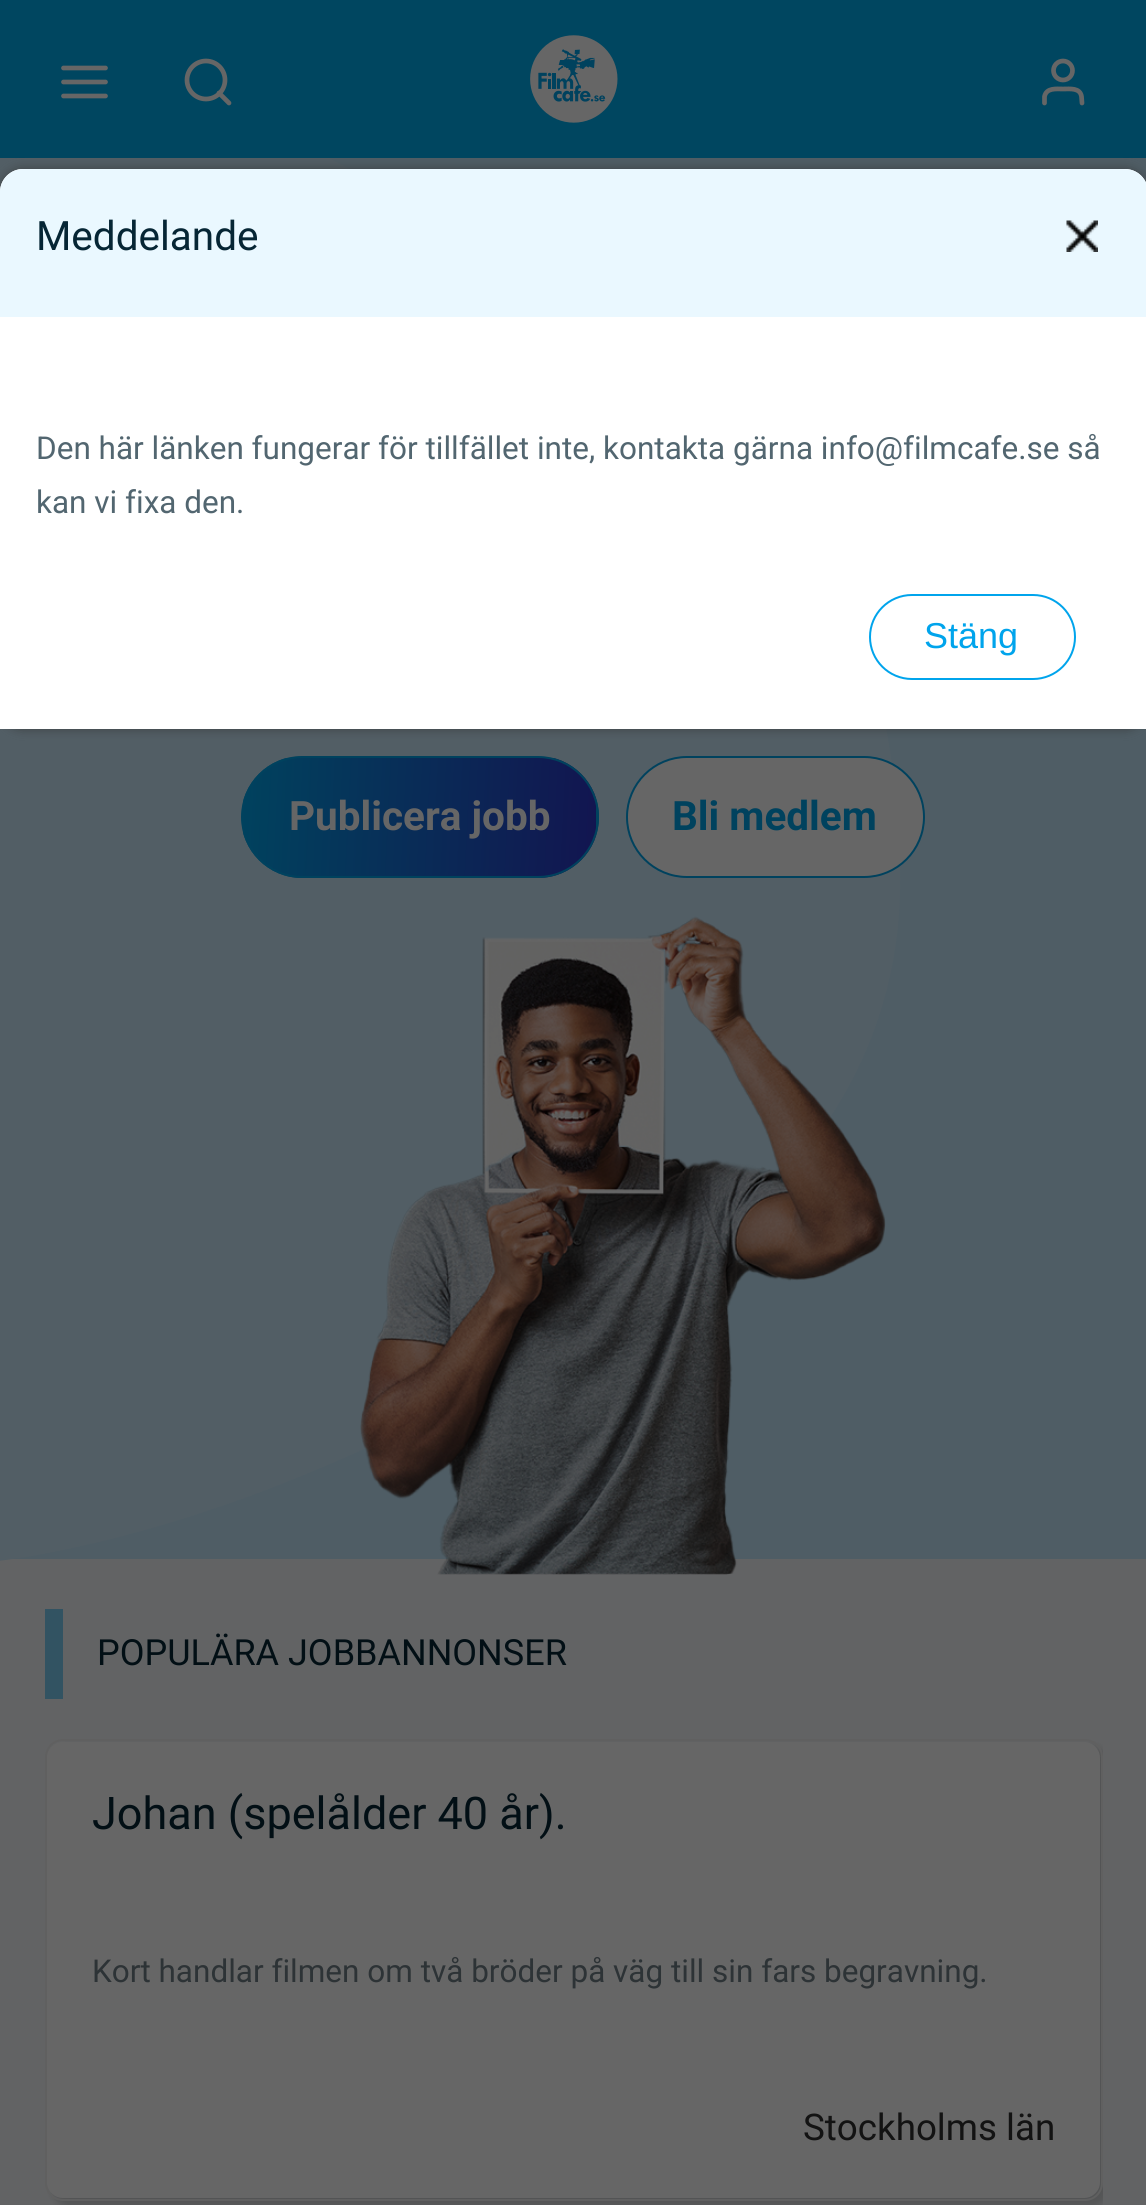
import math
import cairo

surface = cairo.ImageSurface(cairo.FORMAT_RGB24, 1146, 2205)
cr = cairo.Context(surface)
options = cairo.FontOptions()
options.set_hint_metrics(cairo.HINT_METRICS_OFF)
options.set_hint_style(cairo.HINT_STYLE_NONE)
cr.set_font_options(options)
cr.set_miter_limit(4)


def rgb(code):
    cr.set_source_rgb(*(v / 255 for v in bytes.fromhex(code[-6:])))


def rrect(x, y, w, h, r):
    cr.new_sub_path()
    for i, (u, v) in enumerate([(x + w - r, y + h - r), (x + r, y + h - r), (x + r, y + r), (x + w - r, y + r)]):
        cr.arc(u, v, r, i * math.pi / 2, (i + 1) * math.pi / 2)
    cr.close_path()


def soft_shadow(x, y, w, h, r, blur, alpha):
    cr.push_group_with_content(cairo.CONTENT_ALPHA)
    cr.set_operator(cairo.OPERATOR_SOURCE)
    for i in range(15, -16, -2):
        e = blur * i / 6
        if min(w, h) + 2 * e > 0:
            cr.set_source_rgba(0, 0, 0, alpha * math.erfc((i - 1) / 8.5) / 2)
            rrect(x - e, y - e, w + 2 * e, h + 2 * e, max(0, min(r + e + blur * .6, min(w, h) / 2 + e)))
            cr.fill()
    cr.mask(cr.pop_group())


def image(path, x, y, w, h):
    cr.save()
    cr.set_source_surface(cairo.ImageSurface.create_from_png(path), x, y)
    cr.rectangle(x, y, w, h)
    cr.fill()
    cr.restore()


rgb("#626364")
cr.paint()
rgb("#4f5d65")
cr.rectangle(13, 158, 1133, 1401)
cr.fill()
rgb("#525e65")
cr.new_path()
cr.move_to(-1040, 199)
cr.curve_to(-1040, 199, -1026, 107, -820, 1)
cr.curve_to(-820, 1, -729, 6, -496, 6)
cr.line_to(-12, 6)
cr.curve_to(-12, 6, 286, 108, 531, 282)
cr.curve_to(770, 451, 892, 566, 900, 866)
cr.curve_to(907, 1095, 749, 1229, 635, 1300)
cr.curve_to(510, 1378, 296, 1506, 43, 1554)
cr.curve_to(-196, 1600, -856, 1554, -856, 1554)
cr.curve_to(-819, 1564, -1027, 1467, -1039, 1351)
cr.curve_to(-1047, 1278, -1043, 230, -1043, 230)
cr.fill()
rgb("#004660")
cr.rectangle(0, 0, 1146, 158)
cr.fill()
rgb("#323232")
soft_shadow(0, 169, 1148, 560, 23, 5.5, 0.66)
rgb("#ffffff")
rrect(0, 169, 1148, 560, 23)
cr.fill()
rgb("#eaf8ff")
cr.new_path()
cr.move_to(23, 169)
cr.line_to(1125, 169)
cr.curve_to(1137.5, 169, 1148, 179.5, 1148, 192)
cr.line_to(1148, 317)
cr.line_to(0, 317)
cr.line_to(0, 192)
cr.curve_to(0, 179.5, 10.5, 169, 23, 169)
cr.close_path()
cr.fill()
image("img/1.png", 1066, 220, 32, 32)
rgb("#ffffff")
cr.rectangle(0, 706, 1146, 23)
cr.fill()
rrect(870, 595, 205, 84, 42)
rgb("#00a4ec")
cr.stroke()
cr.new_path()
cr.move_to(63.5, 82)
cr.line_to(105.5, 82)
cr.move_to(63.5, 68)
cr.line_to(105.5, 68)
cr.move_to(63.5, 96)
cr.line_to(105.5, 96)
rgb("#666666")
cr.set_line_width(4.7)
cr.set_line_cap(cairo.LINE_CAP_ROUND)
cr.set_line_join(cairo.LINE_JOIN_ROUND)
cr.stroke()
cr.arc(206, 80, 19, 0, 2 * math.pi)
cr.set_line_cap(cairo.LINE_CAP_BUTT)
cr.set_line_join(cairo.LINE_JOIN_MITER)
cr.stroke()
cr.new_path()
cr.move_to(229, 103)
cr.line_to(219, 93)
cr.set_line_cap(cairo.LINE_CAP_ROUND)
cr.set_line_join(cairo.LINE_JOIN_ROUND)
cr.stroke()
image("img/2.png", 530, 35, 88, 88)
cr.new_path()
cr.move_to(1082, 103)
cr.line_to(1081.5, 96.5)
cr.curve_to(1080, 87.5, 1070, 89, 1063, 89)
cr.curve_to(1056.5, 89, 1046.5, 87.5, 1044.5, 96.5)
cr.line_to(1044.5, 103)
cr.stroke()
cr.arc(1063, 70.5, 9.5, 0, 2 * math.pi)
cr.set_line_cap(cairo.LINE_CAP_BUTT)
cr.set_line_join(cairo.LINE_JOIN_MITER)
cr.stroke()
image("img/3.png", 360, 916, 526, 659)
cr.save()
rrect(241, 756, 358, 122, 61)
cr.clip()
gradient = cairo.LinearGradient(240, 808, 599, 826)
gradient.add_color_stop_rgba(0, 0, 0.259, 0.369, 1)
gradient.add_color_stop_rgba(1, 0.071, 0.082, 0.314, 1)
cr.set_source(gradient)
cr.rectangle(243, 758, 353, 117)
cr.fill()
gradient = cairo.LinearGradient(594, 808, 952, 826)
gradient.add_color_stop_rgba(0, 0, 0.259, 0.369, 1)
gradient.add_color_stop_rgba(1, 0.071, 0.082, 0.314, 1)
cr.set_source(gradient)
cr.rectangle(596, 798, 3, 38)
cr.fill()
gradient = cairo.LinearGradient(240, 925, 599, 943)
gradient.add_color_stop_rgba(0, 0, 0.259, 0.369, 1)
gradient.add_color_stop_rgba(1, 0.071, 0.082, 0.314, 1)
cr.set_source(gradient)
cr.rectangle(283, 875, 274, 3)
cr.fill()
cr.restore()
rrect(242, 757, 356, 120, 60)
rgb("#00425e")
cr.set_line_width(2)
cr.stroke()
rgb("#666666")
rrect(627, 757, 297, 120, 60)
cr.fill_preserve()
rgb("#00425e")
cr.stroke()
rgb("#325362")
cr.rectangle(45, 1609, 18, 90)
cr.fill()
cr.save()
cr.rectangle(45, 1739, 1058, 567)
cr.clip()
rgb("#000000")
soft_shadow(52, 1746, 1057, 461, 18, 3.5, 0.15)
cr.restore()
rgb("#666666")
rrect(47, 1742, 1053, 456, 16)
cr.fill()
rrect(46, 1740, 1056, 460, 17)
rgb("#606060")
cr.stroke()
cr.select_font_face("Roboto")
cr.set_font_size(40.5)
rgb("#062635")
cr.move_to(36, 250)
cr.show_text("Meddelande")
cr.set_font_size(31.5)
rgb("#526670")
cr.move_to(36, 459)
cr.show_text("Den här länken fungerar för tillfället inte, kontakta gärna info@filmcafe.se så")
cr.move_to(36, 513)
cr.show_text("kan vi fixa den.")
cr.select_font_face("Liberation Sans")
cr.set_font_size(36)
rgb("#00a4ec")
cr.move_to(924, 648)
cr.show_text("Stäng")
cr.select_font_face("Roboto", cairo.FONT_SLANT_NORMAL, cairo.FONT_WEIGHT_BOLD)
cr.set_font_size(40.5)
rgb("#666666")
cr.move_to(289, 830)
cr.show_text("Publicera jobb")
rgb("#00425e")
cr.move_to(672, 830)
cr.show_text("Bli medlem")
cr.select_font_face("Roboto")
cr.set_font_size(36)
rgb("#020f15")
cr.move_to(97, 1665)
cr.show_text("POPULÄRA JOBBANNONSER")
cr.set_font_size(45)
cr.move_to(92, 1829)
cr.show_text("Johan (spelålder 40 år).")
cr.set_font_size(31.5)
rgb("#2d3336")
cr.move_to(92, 1982)
cr.show_text("Kort handlar filmen om två bröder på väg till sin fars begravning.")
cr.set_font_size(36.75)
rgb("#131313")
cr.move_to(803, 2140)
cr.show_text("Stockholms län")
surface.write_to_png("page.png")
